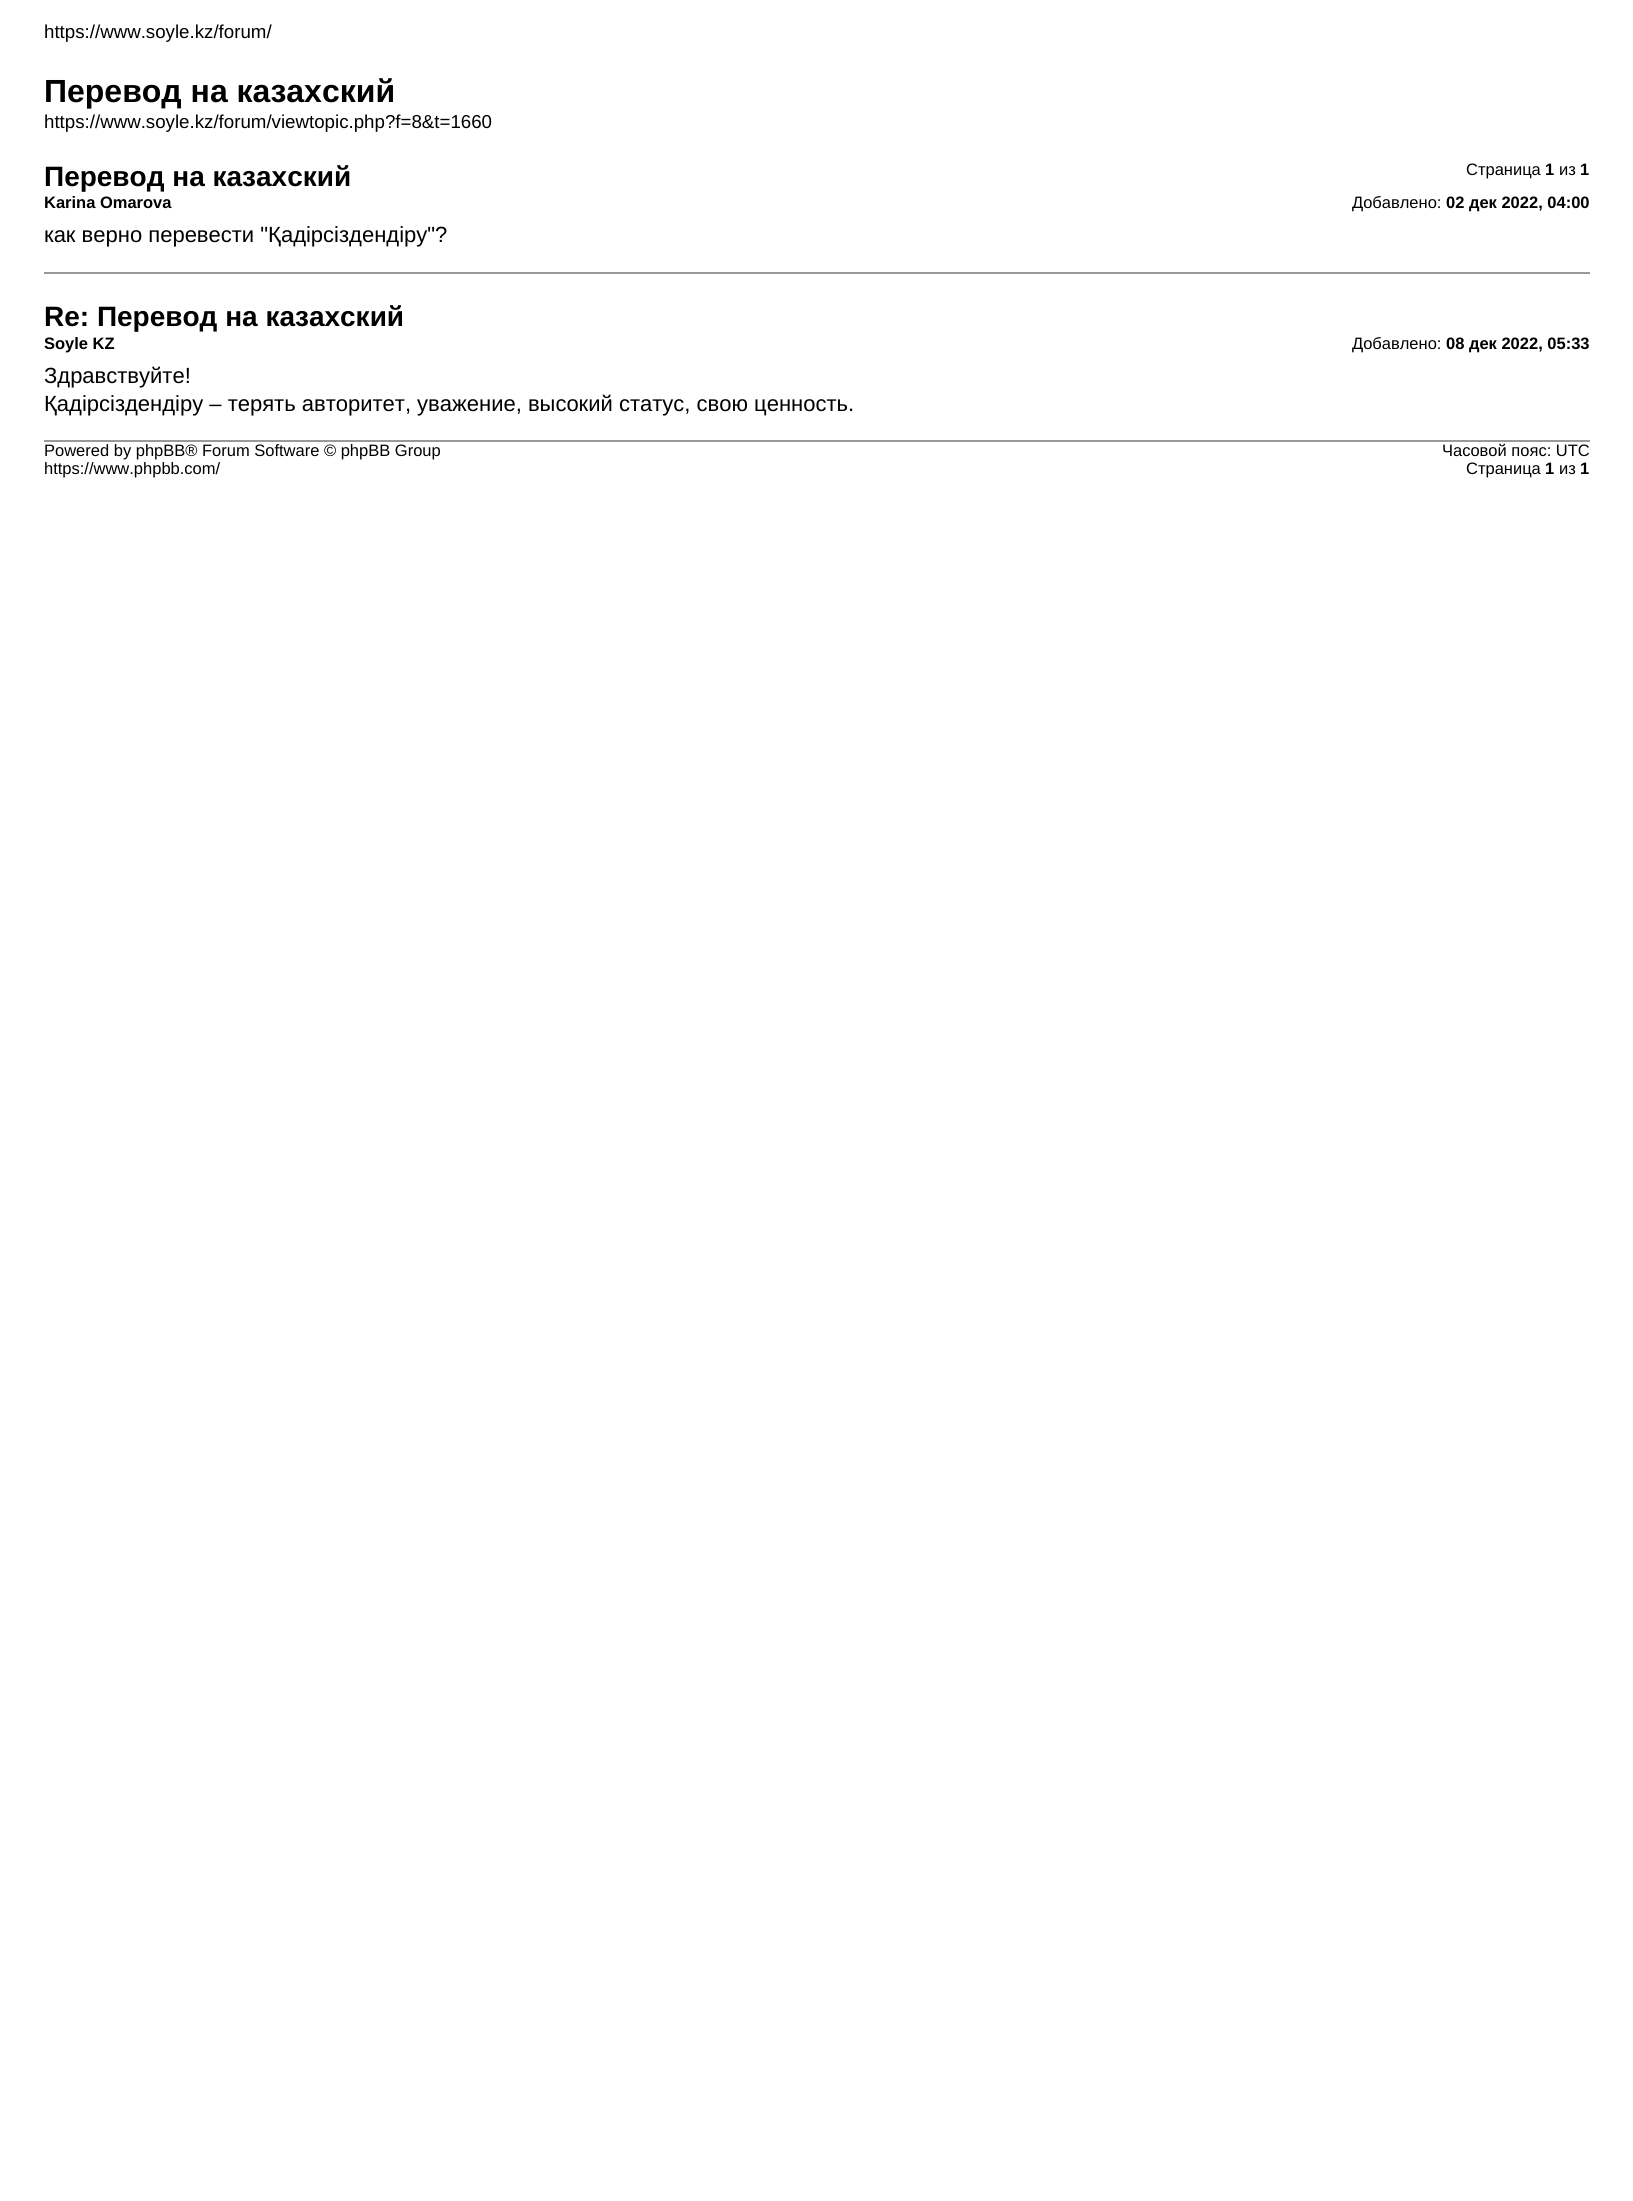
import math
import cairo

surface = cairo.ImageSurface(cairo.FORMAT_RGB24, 1633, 2201)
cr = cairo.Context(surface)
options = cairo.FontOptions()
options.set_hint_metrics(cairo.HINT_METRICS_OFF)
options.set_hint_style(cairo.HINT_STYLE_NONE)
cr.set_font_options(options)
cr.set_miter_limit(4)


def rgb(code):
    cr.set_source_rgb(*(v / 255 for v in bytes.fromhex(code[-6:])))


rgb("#ffffff")
cr.paint()
rgb("#999999")
cr.rectangle(44, 272, 1546, 2)
cr.fill()
cr.rectangle(44, 440, 1546, 2)
cr.fill()
cr.select_font_face("Liberation Sans")
cr.set_font_size(18.7)
rgb("#000000")
cr.move_to(44, 38)
cr.show_text("https://www.soyle.kz/forum/")
cr.select_font_face("Liberation Sans", cairo.FONT_SLANT_NORMAL, cairo.FONT_WEIGHT_BOLD)
cr.set_font_size(32)
cr.move_to(44, 102)
cr.show_text("Перевод на казахский")
cr.select_font_face("Liberation Sans")
cr.set_font_size(18.7)
cr.move_to(44, 128)
cr.show_text("https://www.soyle.kz/forum/viewtopic.php?f=8&t=1660")
cr.set_font_size(16.5)
cr.move_to(1466, 175)
cr.show_text("Страница")
cr.select_font_face("Liberation Sans", cairo.FONT_SLANT_NORMAL, cairo.FONT_WEIGHT_BOLD)
cr.move_to(1545, 175)
cr.show_text("1")
cr.select_font_face("Liberation Sans")
cr.move_to(1559, 175)
cr.show_text("из")
cr.select_font_face("Liberation Sans", cairo.FONT_SLANT_NORMAL, cairo.FONT_WEIGHT_BOLD)
cr.move_to(1580, 175)
cr.show_text("1")
cr.set_font_size(28)
cr.move_to(44, 186)
cr.show_text("Перевод на казахский")
cr.set_font_size(16.5)
cr.move_to(44, 208)
cr.show_text("Karina Omarova")
cr.select_font_face("Liberation Sans")
cr.move_to(1352, 208)
cr.show_text("Добавлено:")
cr.select_font_face("Liberation Sans", cairo.FONT_SLANT_NORMAL, cairo.FONT_WEIGHT_BOLD)
cr.move_to(1446, 208)
cr.show_text("02 дек 2022, 04:00")
cr.select_font_face("Liberation Sans")
cr.set_font_size(22)
cr.move_to(44, 242)
cr.show_text("как верно перевести \"Қадірсіздендіру\"?")
cr.select_font_face("Liberation Sans", cairo.FONT_SLANT_NORMAL, cairo.FONT_WEIGHT_BOLD)
cr.set_font_size(28)
cr.move_to(44, 326)
cr.show_text("Re: Перевод на казахский")
cr.set_font_size(16.5)
cr.move_to(44, 349)
cr.show_text("Soyle KZ")
cr.select_font_face("Liberation Sans")
cr.move_to(1352, 349)
cr.show_text("Добавлено:")
cr.select_font_face("Liberation Sans", cairo.FONT_SLANT_NORMAL, cairo.FONT_WEIGHT_BOLD)
cr.move_to(1446, 349)
cr.show_text("08 дек 2022, 05:33")
cr.select_font_face("Liberation Sans")
cr.set_font_size(22)
cr.move_to(44, 383)
cr.show_text("Здравствуйте!")
cr.move_to(44, 411)
cr.show_text("Қадірсіздендіру – терять авторитет, уважение, высокий статус, свою ценность.")
cr.set_font_size(16.5)
for x, y, s in [
    (44, 456, "Powered by phpBB® Forum Software © phpBB Group"),
    (44, 474, "https://www.phpbb.com/"),
    (1442, 456, "Часовой пояс: UTC"),
    (1466, 474, "Страница"),
]:
    cr.move_to(x, y)
    cr.show_text(s)
cr.select_font_face("Liberation Sans", cairo.FONT_SLANT_NORMAL, cairo.FONT_WEIGHT_BOLD)
cr.move_to(1545, 474)
cr.show_text("1")
cr.select_font_face("Liberation Sans")
cr.move_to(1559, 474)
cr.show_text("из")
cr.select_font_face("Liberation Sans", cairo.FONT_SLANT_NORMAL, cairo.FONT_WEIGHT_BOLD)
cr.move_to(1580, 474)
cr.show_text("1")
surface.write_to_png("page.png")
